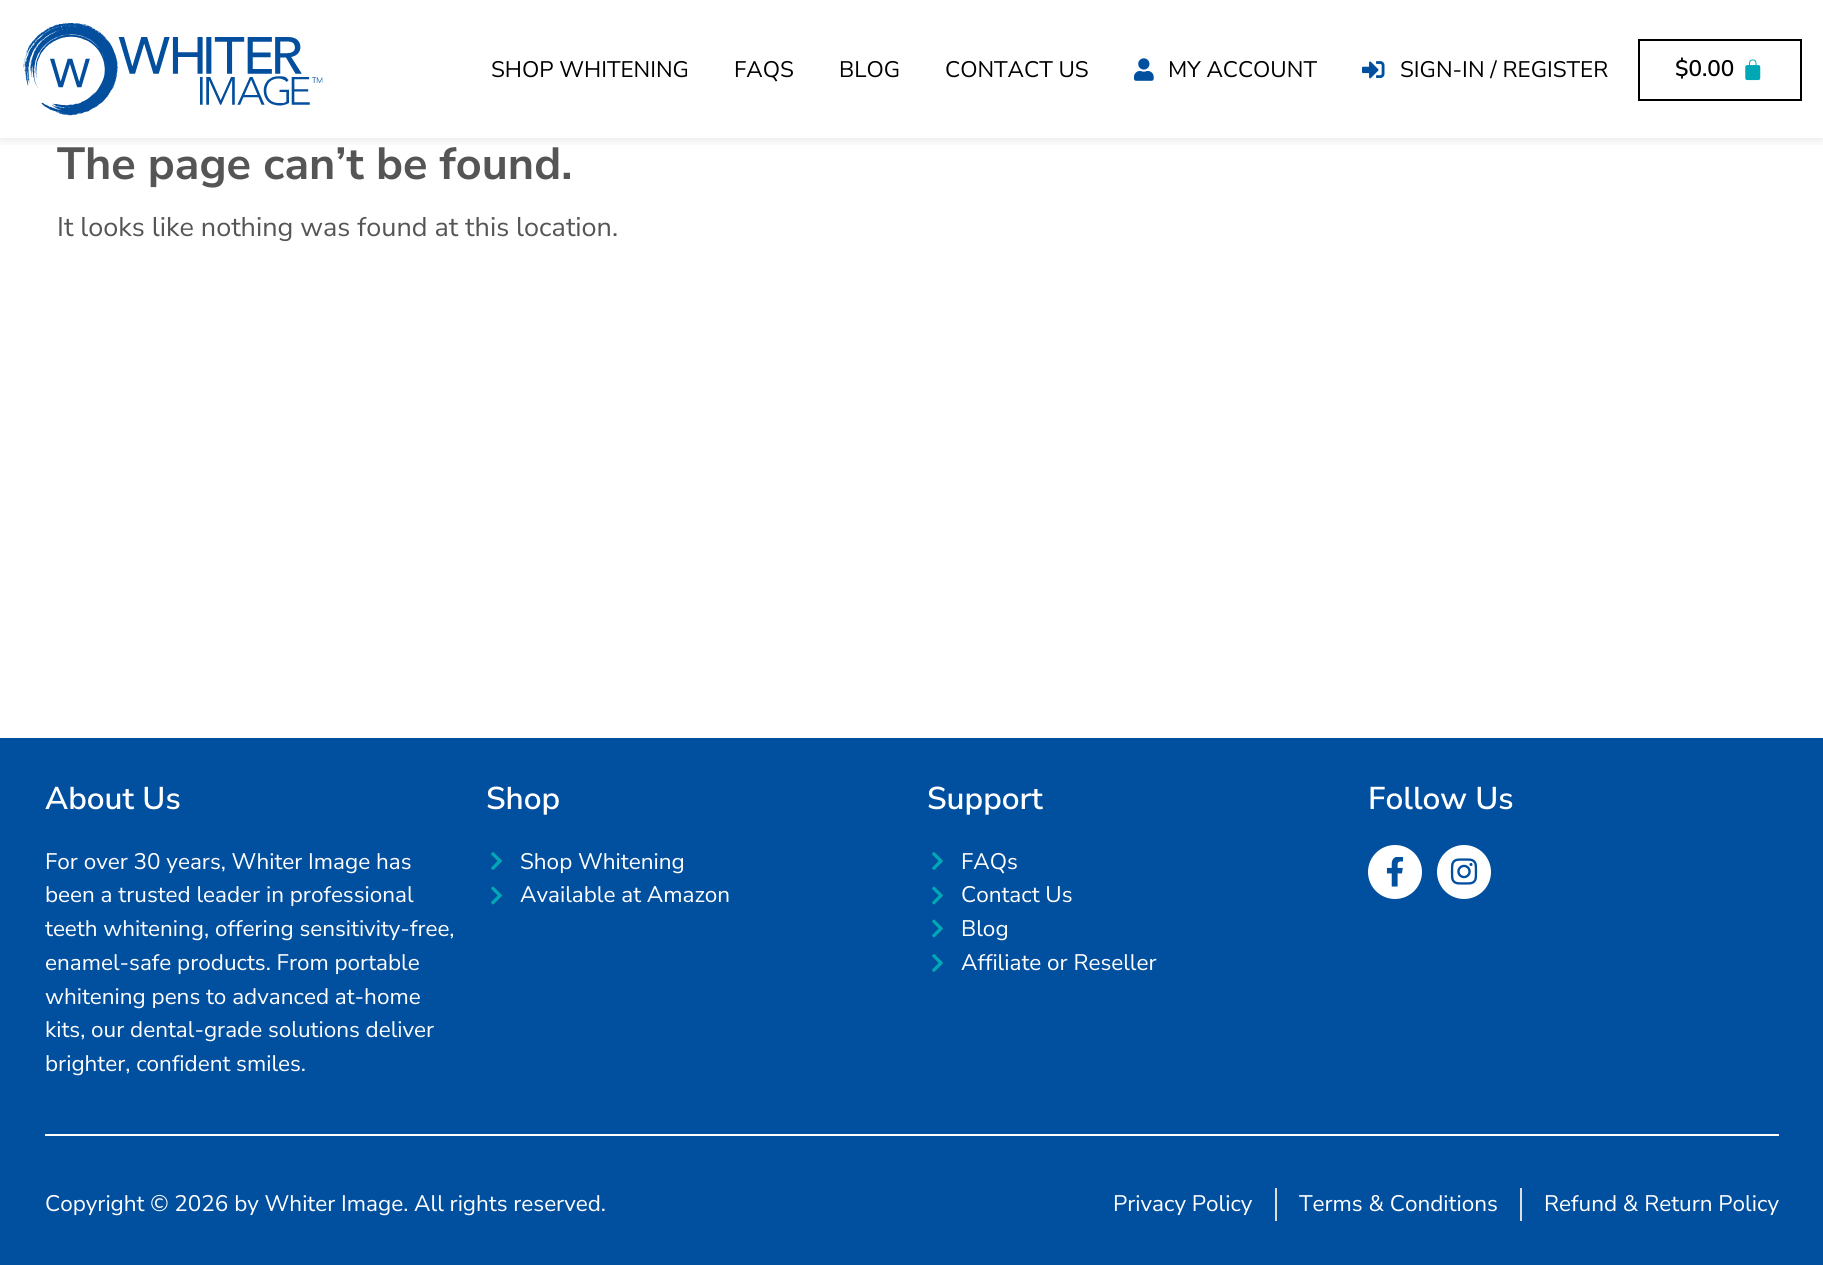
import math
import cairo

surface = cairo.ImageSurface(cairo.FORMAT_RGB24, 1823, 1265)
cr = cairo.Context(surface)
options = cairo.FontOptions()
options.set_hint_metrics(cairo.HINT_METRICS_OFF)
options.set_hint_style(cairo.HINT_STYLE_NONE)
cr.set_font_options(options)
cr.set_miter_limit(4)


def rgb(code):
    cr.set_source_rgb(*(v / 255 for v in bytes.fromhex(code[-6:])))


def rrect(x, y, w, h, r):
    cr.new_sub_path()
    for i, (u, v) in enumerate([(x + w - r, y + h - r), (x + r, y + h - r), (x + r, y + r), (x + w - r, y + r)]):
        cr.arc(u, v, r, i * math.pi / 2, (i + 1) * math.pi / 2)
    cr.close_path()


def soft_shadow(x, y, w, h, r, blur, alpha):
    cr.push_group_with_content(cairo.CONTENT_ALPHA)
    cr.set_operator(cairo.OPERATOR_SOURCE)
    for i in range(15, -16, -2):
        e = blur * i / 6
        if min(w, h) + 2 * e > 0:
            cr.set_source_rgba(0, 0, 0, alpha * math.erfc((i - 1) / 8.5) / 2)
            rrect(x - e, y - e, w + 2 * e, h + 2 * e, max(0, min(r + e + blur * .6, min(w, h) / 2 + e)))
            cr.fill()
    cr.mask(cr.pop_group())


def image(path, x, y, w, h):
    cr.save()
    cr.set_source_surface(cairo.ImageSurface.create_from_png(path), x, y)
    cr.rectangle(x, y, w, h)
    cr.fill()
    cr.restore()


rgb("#ffffff")
cr.paint()
cr.save()
cr.rectangle(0, 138, 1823, 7)
cr.clip()
rgb("#000000")
soft_shadow(0, 0, 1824, 138, 0, 7.5, 0.12)
cr.restore()
image("img/1.png", 23, 23, 300, 93)
image("img/2.png", 1134, 58, 20, 23)
image("img/3.png", 1362, 61, 23, 18)
cr.rectangle(1639, 40, 162, 60)
rgb("#000000")
cr.stroke()
image("img/4.png", 1745, 59, 16, 22)
rgb("#014f9f")
cr.rectangle(0, 738, 1823, 527)
cr.fill()
image("img/5.png", 491, 852, 11, 18)
image("img/6.png", 491, 886, 11, 19)
image("img/5.png", 932, 852, 11, 18)
image("img/6.png", 932, 886, 11, 19)
image("img/6.png", 932, 919, 11, 19)
image("img/5.png", 932, 954, 11, 18)
rgb("#ffffff")
cr.arc(1395, 872, 27, 0, 2 * math.pi)
cr.fill()
image("img/7.png", 1386, 857, 18, 30)
cr.arc(1464, 872, 27, 0, 2 * math.pi)
cr.fill()
image("img/8.png", 1450, 858, 28, 27)
for x, y, w, h, color in [
    (45, 1134, 1734, 2, "#ffffff"),
    (1275, 1188, 2, 33, "#dddddd"),
    (1520, 1188, 2, 33, "#dddddd"),
]:
    rgb(color)
    cr.rectangle(x, y, w, h)
    cr.fill()
cr.select_font_face("Nunito Sans")
cr.set_font_size(22.5)
rgb("#000000")
for x, y, s in [
    (491, 77, "SHOP WHITENING"),
    (734, 77, "FAQS"),
    (839, 77, "BLOG"),
    (945, 77, "CONTACT US"),
    (1168, 77, "MY ACCOUNT"),
    (1400, 77, "SIGN-IN / REGISTER"),
]:
    cr.move_to(x, y)
    cr.show_text(s)
cr.select_font_face("Nunito Sans SemiBold")
cr.move_to(1675, 76)
cr.show_text("$0.00")
cr.select_font_face("Nunito Sans", cairo.FONT_SLANT_NORMAL, cairo.FONT_WEIGHT_BOLD)
cr.set_font_size(45)
rgb("#555555")
cr.move_to(57, 179)
cr.show_text("The page can’t be found.")
cr.select_font_face("Nunito Sans")
cr.set_font_size(27)
cr.move_to(57, 236)
cr.show_text("It looks like nothing was found at this location.")
cr.select_font_face("Nunito Sans SemiBold")
cr.set_font_size(31.5)
rgb("#ffffff")
cr.move_to(45, 809)
cr.show_text("About Us")
cr.select_font_face("Nunito Sans")
cr.set_font_size(22.5)
for x, y, s in [
    (45, 869, "For over 30 years, Whiter Image has"),
    (45, 902, "been a trusted leader in professional"),
    (45, 936, "teeth whitening, offering sensitivity-free,"),
    (45, 970, "enamel-safe products. From portable"),
    (45, 1004, "whitening pens to advanced at-home"),
    (45, 1037, "kits, our dental-grade solutions deliver"),
    (45, 1071, "brighter, confident smiles."),
]:
    cr.move_to(x, y)
    cr.show_text(s)
cr.select_font_face("Nunito Sans SemiBold")
cr.set_font_size(31.5)
cr.move_to(486, 809)
cr.show_text("Shop")
cr.select_font_face("Nunito Sans")
cr.set_font_size(22.5)
cr.move_to(520, 869)
cr.show_text("Shop Whitening")
cr.move_to(520, 902)
cr.show_text("Available at Amazon")
cr.select_font_face("Nunito Sans SemiBold")
cr.set_font_size(31.5)
cr.move_to(927, 809)
cr.show_text("Support")
cr.select_font_face("Nunito Sans")
cr.set_font_size(22.5)
for x, y, s in [
    (961, 869, "FAQs"),
    (961, 902, "Contact Us"),
    (961, 936, "Blog"),
    (961, 970, "Affiliate or Reseller"),
]:
    cr.move_to(x, y)
    cr.show_text(s)
cr.select_font_face("Nunito Sans SemiBold")
cr.set_font_size(31.5)
cr.move_to(1368, 809)
cr.show_text("Follow Us")
cr.select_font_face("Nunito Sans")
cr.set_font_size(22.5)
for x, y, s in [
    (45, 1211, "Copyright © 2026 by Whiter Image. All rights reserved."),
    (1113, 1211, "Privacy Policy"),
    (1299, 1211, "Terms & Conditions"),
    (1544, 1211, "Refund & Return Policy"),
]:
    cr.move_to(x, y)
    cr.show_text(s)
surface.write_to_png("page.png")
